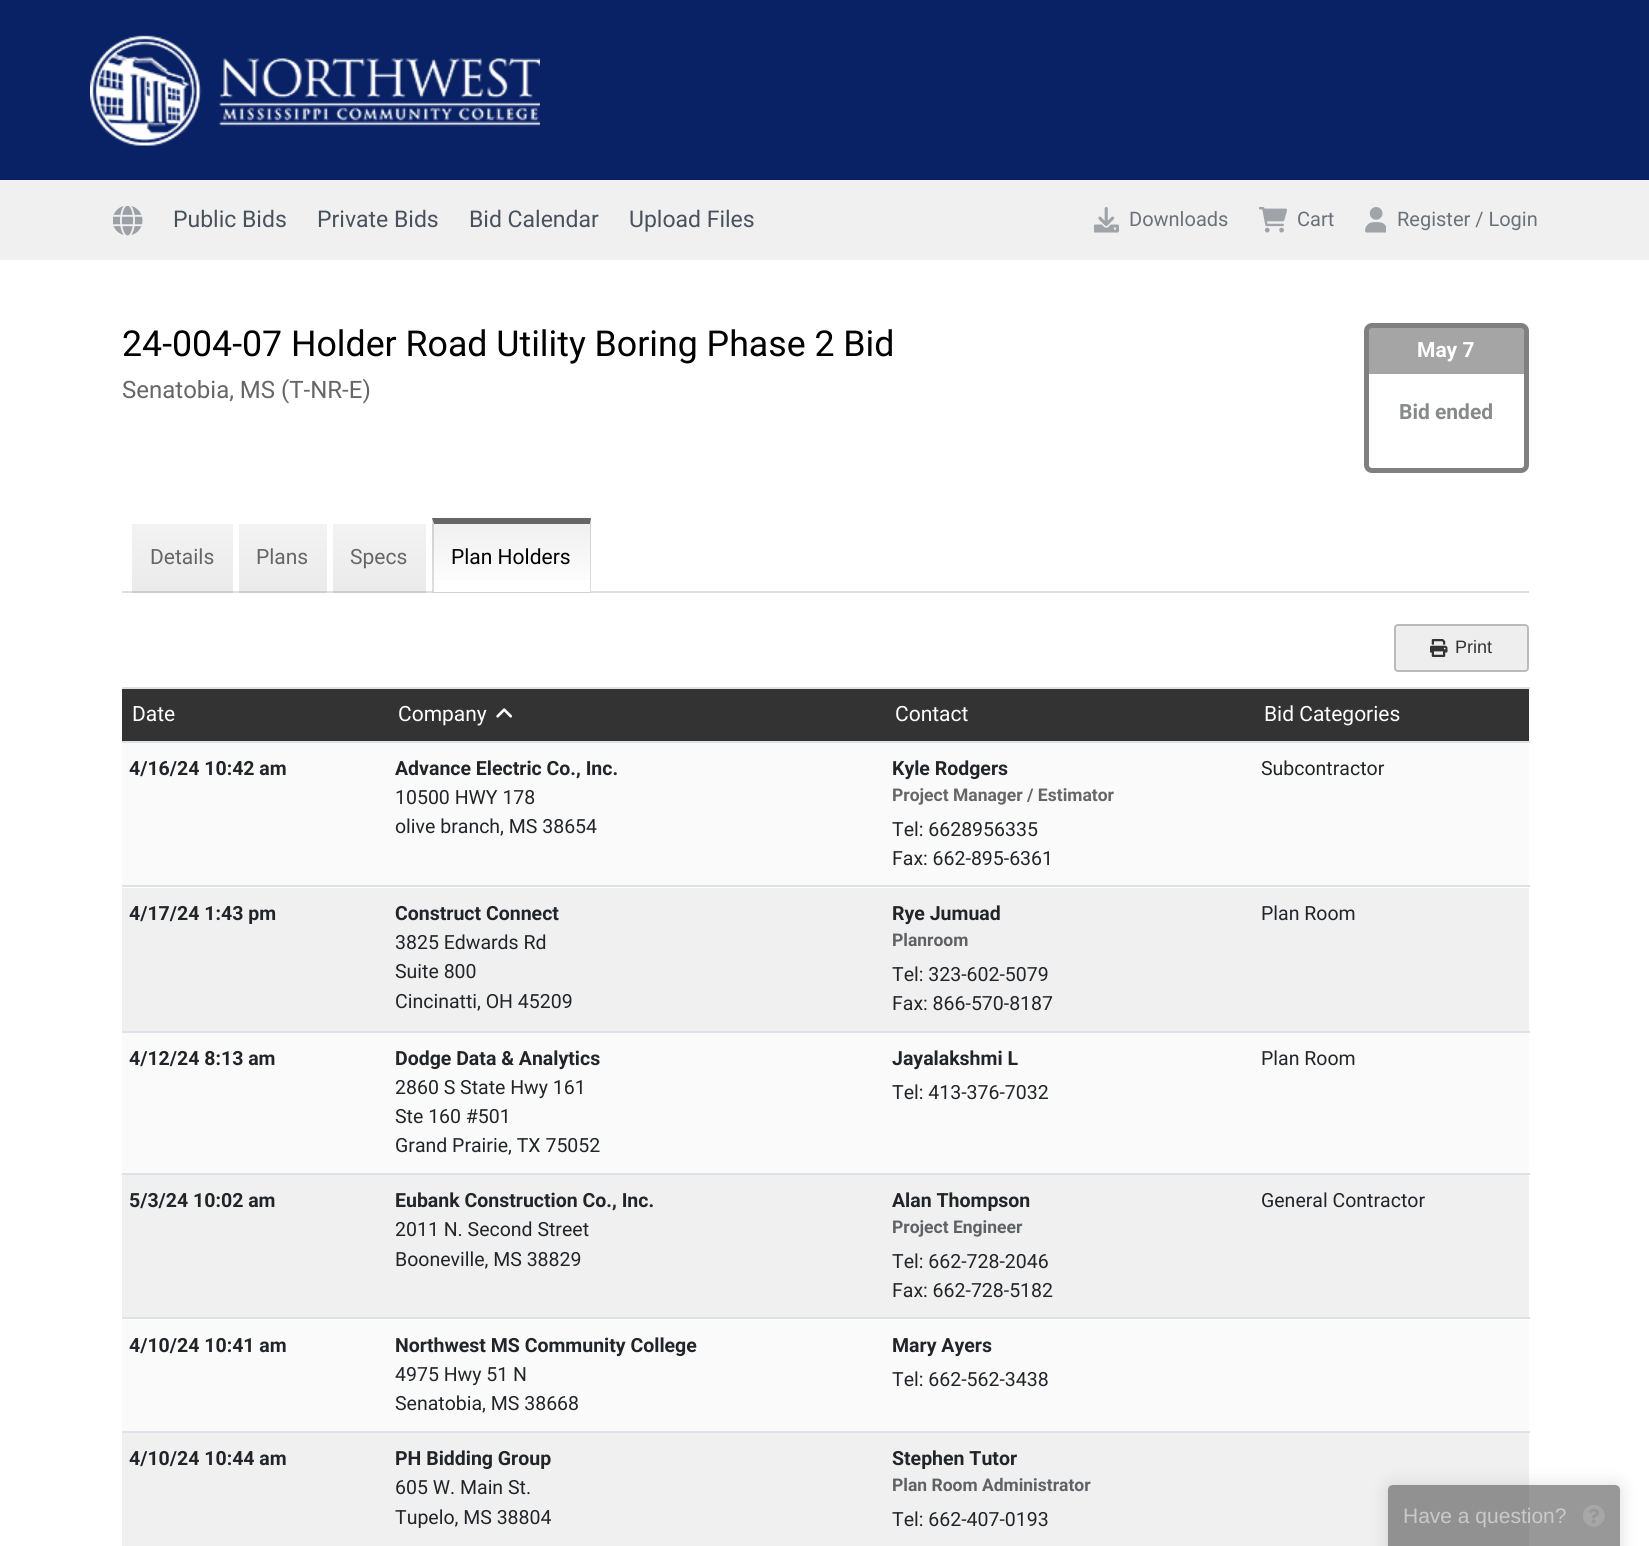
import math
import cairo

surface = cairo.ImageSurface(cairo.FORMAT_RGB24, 1649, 1546)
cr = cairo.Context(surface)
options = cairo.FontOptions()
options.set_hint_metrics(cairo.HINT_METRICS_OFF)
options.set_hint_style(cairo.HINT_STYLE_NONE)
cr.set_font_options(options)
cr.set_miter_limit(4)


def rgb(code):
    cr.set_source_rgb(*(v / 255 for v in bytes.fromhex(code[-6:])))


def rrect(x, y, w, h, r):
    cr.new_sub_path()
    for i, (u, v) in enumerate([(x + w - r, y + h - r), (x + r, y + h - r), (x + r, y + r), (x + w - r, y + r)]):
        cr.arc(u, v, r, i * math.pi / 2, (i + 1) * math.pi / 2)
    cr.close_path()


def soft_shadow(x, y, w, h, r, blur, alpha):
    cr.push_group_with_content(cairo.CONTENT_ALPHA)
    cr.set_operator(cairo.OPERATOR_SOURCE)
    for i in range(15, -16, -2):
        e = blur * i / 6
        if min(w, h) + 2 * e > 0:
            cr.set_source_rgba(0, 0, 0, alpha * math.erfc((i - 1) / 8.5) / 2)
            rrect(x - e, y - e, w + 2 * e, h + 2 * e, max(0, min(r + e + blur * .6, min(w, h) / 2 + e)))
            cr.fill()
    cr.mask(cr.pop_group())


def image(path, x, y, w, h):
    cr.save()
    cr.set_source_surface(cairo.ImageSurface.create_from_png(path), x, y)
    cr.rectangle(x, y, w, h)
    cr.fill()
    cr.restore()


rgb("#ffffff")
cr.paint()
rgb("#092165")
cr.rectangle(0, 0, 1649, 180)
cr.fill()
image("img/1.png", 90, 35, 450, 111)
rgb("#f0f0f0")
cr.rectangle(0, 180, 1649, 80)
cr.fill()
image("img/2.png", 113, 206, 30, 30)
image("img/3.png", 1094, 207, 25, 26)
image("img/4.png", 1259, 207, 28, 26)
image("img/5.png", 1365, 207, 21, 26)
rrect(1366.5, 325.5, 160, 145, 5.5)
rgb("#808080")
cr.set_line_width(5)
cr.stroke()
cr.set_source_rgba(0.502, 0.502, 0.502, 0.7)
cr.rectangle(1369, 328, 155, 46)
cr.fill()
rgb("#dedede")
cr.rectangle(122, 591, 1407, 2)
cr.fill()
gradient = cairo.LinearGradient(182, 524, 182, 593)
gradient.add_color_stop_rgba(0, 0, 0, 0, 0.05)
gradient.add_color_stop_rgba(1, 0, 0, 0, 0.08)
cr.set_source(gradient)
cr.rectangle(132, 524, 101, 69)
cr.fill()
gradient = cairo.LinearGradient(283, 524, 283, 593)
gradient.add_color_stop_rgba(0, 0, 0, 0, 0.05)
gradient.add_color_stop_rgba(1, 0, 0, 0, 0.08)
cr.set_source(gradient)
cr.rectangle(239, 524, 88, 69)
cr.fill()
gradient = cairo.LinearGradient(380, 524, 380, 593)
gradient.add_color_stop_rgba(0, 0, 0, 0, 0.05)
gradient.add_color_stop_rgba(1, 0, 0, 0, 0.08)
cr.set_source(gradient)
cr.rectangle(333, 524, 93, 69)
cr.fill()
gradient = cairo.LinearGradient(512, 524, 512, 591)
gradient.add_color_stop_rgba(0, 0.941, 0.941, 0.941, 1)
gradient.add_color_stop_rgba(1, 1, 1, 1, 1)
cr.set_source(gradient)
cr.rectangle(432, 524, 159, 56)
cr.fill()
gradient = cairo.LinearGradient(512, 591, 512, 659)
gradient.add_color_stop_rgba(0, 0.82, 0.82, 0.82, 1)
gradient.add_color_stop_rgba(1, 0.871, 0.871, 0.871, 1)
cr.set_source(gradient)
cr.rectangle(432, 591, 159, 2)
cr.fill()
rgb("#666666")
cr.new_path()
cr.move_to(432, 518)
cr.line_to(591, 518)
cr.line_to(590, 524)
cr.line_to(434, 524)
cr.close_path()
cr.fill()
cr.set_source_rgba(0, 0, 0, 0.13)
cr.new_path()
cr.move_to(591, 518)
cr.line_to(591, 592)
cr.line_to(590, 591)
cr.line_to(590, 524)
cr.close_path()
cr.fill()
rgb("#ffffff")
cr.new_path()
cr.move_to(591, 592)
cr.line_to(432, 592)
cr.line_to(434, 591)
cr.line_to(590, 591)
cr.close_path()
cr.fill()
cr.set_source_rgba(0, 0, 0, 0.13)
cr.new_path()
cr.move_to(432, 592)
cr.line_to(432, 518)
cr.line_to(434, 524)
cr.line_to(434, 591)
cr.close_path()
cr.fill()
rgb("#eeeeee")
rrect(1395, 625, 133, 46, 3)
cr.fill_preserve()
rgb("#bbbbbb")
cr.set_line_width(2)
cr.stroke()
image("img/6.png", 1430, 639, 18, 18)
rgb("#333333")
cr.rectangle(122, 689, 1407, 52)
cr.fill()
image("img/7.png", 496, 708, 16, 10)
for x, y, w, h, color in [
    (122, 687, 1408, 2, "#dee2e6"),
    (122, 743, 1407, 142, "#fafafa"),
    (122, 741, 1408, 2, "#dee2e6"),
    (122, 888, 1407, 143, "#f0f0f0"),
    (122, 885, 1408, 2, "#dee2e6"),
    (122, 1033, 1407, 140, "#fafafa"),
    (122, 1031, 1408, 2, "#dee2e6"),
    (122, 1175, 1407, 142, "#f0f0f0"),
    (122, 1173, 1408, 2, "#dee2e6"),
    (122, 1317, 1408, 2, "#dee2e6"),
    (122, 1320, 1407, 111, "#fafafa"),
    (122, 1431, 1408, 2, "#dee2e6"),
    (122, 1433, 1407, 113, "#f0f0f0"),
]:
    rgb(color)
    cr.rectangle(x, y, w, h)
    cr.fill()
cr.save()
cr.set_fill_rule(cairo.FILL_RULE_EVEN_ODD)
cr.new_path()
cr.move_to(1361, 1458)
cr.line_to(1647, 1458)
cr.line_to(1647, 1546)
cr.line_to(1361, 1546)
cr.close_path()
cr.move_to(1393, 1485)
cr.line_to(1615, 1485)
cr.curve_to(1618, 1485, 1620, 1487, 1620, 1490)
cr.line_to(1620, 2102)
cr.line_to(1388, 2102)
cr.line_to(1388, 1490)
cr.curve_to(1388, 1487, 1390, 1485, 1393, 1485)
cr.close_path()
cr.clip()
rgb("#000000")
soft_shadow(1385, 1482, 238, 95, 8, 7.5, 0.1)
cr.restore()
cr.set_source_rgba(0.2, 0.2, 0.2, 0.5)
cr.new_path()
cr.move_to(1393, 1485)
cr.line_to(1615, 1485)
cr.curve_to(1618, 1485, 1620, 1487, 1620, 1490)
cr.line_to(1620, 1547)
cr.line_to(1388, 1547)
cr.line_to(1388, 1490)
cr.curve_to(1388, 1487, 1390, 1485, 1393, 1485)
cr.close_path()
cr.fill()
image("img/8.png", 1583, 1505, 22, 22)
cr.select_font_face("Roboto")
cr.set_font_size(23)
rgb("#49515c")
for x, y, s in [
    (173, 227, "Public Bids"),
    (317, 227, "Private Bids"),
    (469, 227, "Bid Calendar"),
    (629, 227, "Upload Files"),
]:
    cr.move_to(x, y)
    cr.show_text(s)
cr.set_font_size(20)
rgb("#6a717a")
for x, y, s in [
    (1129, 226, "Downloads"),
    (1297, 226, "Cart"),
    (1397, 226, "Register / Login"),
]:
    cr.move_to(x, y)
    cr.show_text(s)
cr.set_font_size(35.7)
rgb("#000000")
cr.move_to(122, 356)
cr.show_text("24-004-07 Holder Road Utility Boring Phase 2 Bid")
cr.select_font_face("Roboto", cairo.FONT_SLANT_NORMAL, cairo.FONT_WEIGHT_BOLD)
cr.set_font_size(21)
rgb("#ffffff")
cr.move_to(1417, 357)
cr.show_text("May 7")
rgb("#87898a")
cr.move_to(1399, 419)
cr.show_text("Bid ended")
cr.select_font_face("Roboto")
cr.set_font_size(24)
rgb("#666666")
cr.move_to(122, 398)
cr.show_text("Senatobia, MS (T-NR-E)")
cr.set_font_size(21)
for x, y, s in [
    (150, 564, "Details"),
    (256, 564, "Plans"),
    (350, 564, "Specs"),
]:
    cr.move_to(x, y)
    cr.show_text(s)
rgb("#000000")
cr.move_to(451, 564)
cr.show_text("Plan Holders")
cr.select_font_face("Liberation Sans")
cr.set_font_size(18)
rgb("#333333")
cr.move_to(1455, 653)
cr.show_text("Print")
cr.select_font_face("Roboto")
cr.set_font_size(21)
rgb("#ffffff")
for x, y, s in [
    (132, 721, "Date"),
    (398, 721, "Company"),
    (895, 721, "Contact"),
    (1264, 721, "Bid Categories"),
]:
    cr.move_to(x, y)
    cr.show_text(s)
cr.select_font_face("Roboto", cairo.FONT_SLANT_NORMAL, cairo.FONT_WEIGHT_BOLD)
cr.set_font_size(19.5)
rgb("#212529")
cr.move_to(129, 775)
cr.show_text("4/16/24 10:42 am")
cr.move_to(395, 775)
cr.show_text("Advance Electric Co., Inc.")
cr.select_font_face("Roboto")
cr.move_to(395, 804)
cr.show_text("10500 HWY 178")
cr.move_to(395, 833)
cr.show_text("olive branch, MS 38654")
cr.select_font_face("Roboto", cairo.FONT_SLANT_NORMAL, cairo.FONT_WEIGHT_BOLD)
cr.move_to(892, 775)
cr.show_text("Kyle Rodgers")
cr.set_font_size(17.5)
rgb("#666666")
cr.move_to(892, 801)
cr.show_text("Project Manager / Estimator")
cr.select_font_face("Roboto")
cr.set_font_size(19.5)
rgb("#212529")
for x, y, s in [
    (892, 836, "Tel: 6628956335"),
    (892, 865, "Fax: 662-895-6361"),
    (1261, 775, "Subcontractor"),
]:
    cr.move_to(x, y)
    cr.show_text(s)
cr.select_font_face("Roboto", cairo.FONT_SLANT_NORMAL, cairo.FONT_WEIGHT_BOLD)
cr.move_to(129, 920)
cr.show_text("4/17/24 1:43 pm")
cr.move_to(395, 920)
cr.show_text("Construct Connect")
cr.select_font_face("Roboto")
for x, y, s in [
    (395, 949, "3825 Edwards Rd"),
    (395, 978, "Suite 800"),
    (395, 1008, "Cincinatti, OH 45209"),
]:
    cr.move_to(x, y)
    cr.show_text(s)
cr.select_font_face("Roboto", cairo.FONT_SLANT_NORMAL, cairo.FONT_WEIGHT_BOLD)
cr.move_to(892, 920)
cr.show_text("Rye Jumuad")
cr.set_font_size(17.5)
rgb("#5f6265")
cr.move_to(892, 946)
cr.show_text("Planroom")
cr.select_font_face("Roboto")
cr.set_font_size(19.5)
rgb("#212529")
for x, y, s in [
    (892, 981, "Tel: 323-602-5079"),
    (892, 1010, "Fax: 866-570-8187"),
    (1261, 920, "Plan Room"),
]:
    cr.move_to(x, y)
    cr.show_text(s)
cr.select_font_face("Roboto", cairo.FONT_SLANT_NORMAL, cairo.FONT_WEIGHT_BOLD)
cr.move_to(129, 1065)
cr.show_text("4/12/24 8:13 am")
cr.move_to(395, 1065)
cr.show_text("Dodge Data & Analytics")
cr.select_font_face("Roboto")
for x, y, s in [
    (395, 1094, "2860 S State Hwy 161"),
    (395, 1123, "Ste 160 #501"),
    (395, 1152, "Grand Prairie, TX 75052"),
]:
    cr.move_to(x, y)
    cr.show_text(s)
cr.select_font_face("Roboto", cairo.FONT_SLANT_NORMAL, cairo.FONT_WEIGHT_BOLD)
cr.move_to(892, 1065)
cr.show_text("Jayalakshmi L")
cr.select_font_face("Roboto")
cr.move_to(892, 1099)
cr.show_text("Tel: 413-376-7032")
cr.move_to(1261, 1065)
cr.show_text("Plan Room")
cr.select_font_face("Roboto", cairo.FONT_SLANT_NORMAL, cairo.FONT_WEIGHT_BOLD)
cr.move_to(129, 1207)
cr.show_text("5/3/24 10:02 am")
cr.move_to(395, 1207)
cr.show_text("Eubank Construction Co., Inc.")
cr.select_font_face("Roboto")
cr.move_to(395, 1236)
cr.show_text("2011 N. Second Street")
cr.move_to(395, 1266)
cr.show_text("Booneville, MS 38829")
cr.select_font_face("Roboto", cairo.FONT_SLANT_NORMAL, cairo.FONT_WEIGHT_BOLD)
cr.move_to(892, 1207)
cr.show_text("Alan Thompson")
cr.set_font_size(17.5)
rgb("#5f6265")
cr.move_to(892, 1233)
cr.show_text("Project Engineer")
cr.select_font_face("Roboto")
cr.set_font_size(19.5)
rgb("#212529")
for x, y, s in [
    (892, 1268, "Tel: 662-728-2046"),
    (892, 1297, "Fax: 662-728-5182"),
    (1261, 1207, "General Contractor"),
]:
    cr.move_to(x, y)
    cr.show_text(s)
cr.select_font_face("Roboto", cairo.FONT_SLANT_NORMAL, cairo.FONT_WEIGHT_BOLD)
cr.move_to(129, 1352)
cr.show_text("4/10/24 10:41 am")
cr.move_to(395, 1352)
cr.show_text("Northwest MS Community College")
cr.select_font_face("Roboto")
cr.move_to(395, 1381)
cr.show_text("4975 Hwy 51 N")
cr.move_to(395, 1410)
cr.show_text("Senatobia, MS 38668")
cr.select_font_face("Roboto", cairo.FONT_SLANT_NORMAL, cairo.FONT_WEIGHT_BOLD)
cr.move_to(892, 1352)
cr.show_text("Mary Ayers")
cr.select_font_face("Roboto")
cr.move_to(892, 1386)
cr.show_text("Tel: 662-562-3438")
cr.select_font_face("Roboto", cairo.FONT_SLANT_NORMAL, cairo.FONT_WEIGHT_BOLD)
cr.move_to(129, 1465)
cr.show_text("4/10/24 10:44 am")
cr.move_to(395, 1465)
cr.show_text("PH Bidding Group")
cr.select_font_face("Roboto")
cr.move_to(395, 1494)
cr.show_text("605 W. Main St.")
cr.move_to(395, 1524)
cr.show_text("Tupelo, MS 38804")
cr.select_font_face("Roboto", cairo.FONT_SLANT_NORMAL, cairo.FONT_WEIGHT_BOLD)
cr.move_to(892, 1465)
cr.show_text("Stephen Tutor")
cr.set_font_size(17.5)
rgb("#5f6265")
cr.move_to(892, 1491)
cr.show_text("Plan Room Administrator")
cr.select_font_face("Roboto")
cr.set_font_size(19.5)
rgb("#212529")
cr.move_to(892, 1526)
cr.show_text("Tel: 662-407-0193")
cr.select_font_face("Liberation Sans")
cr.set_font_size(21)
rgb("#c9c9c9")
cr.move_to(1403, 1523)
cr.show_text("Have a question?")
surface.write_to_png("page.png")
